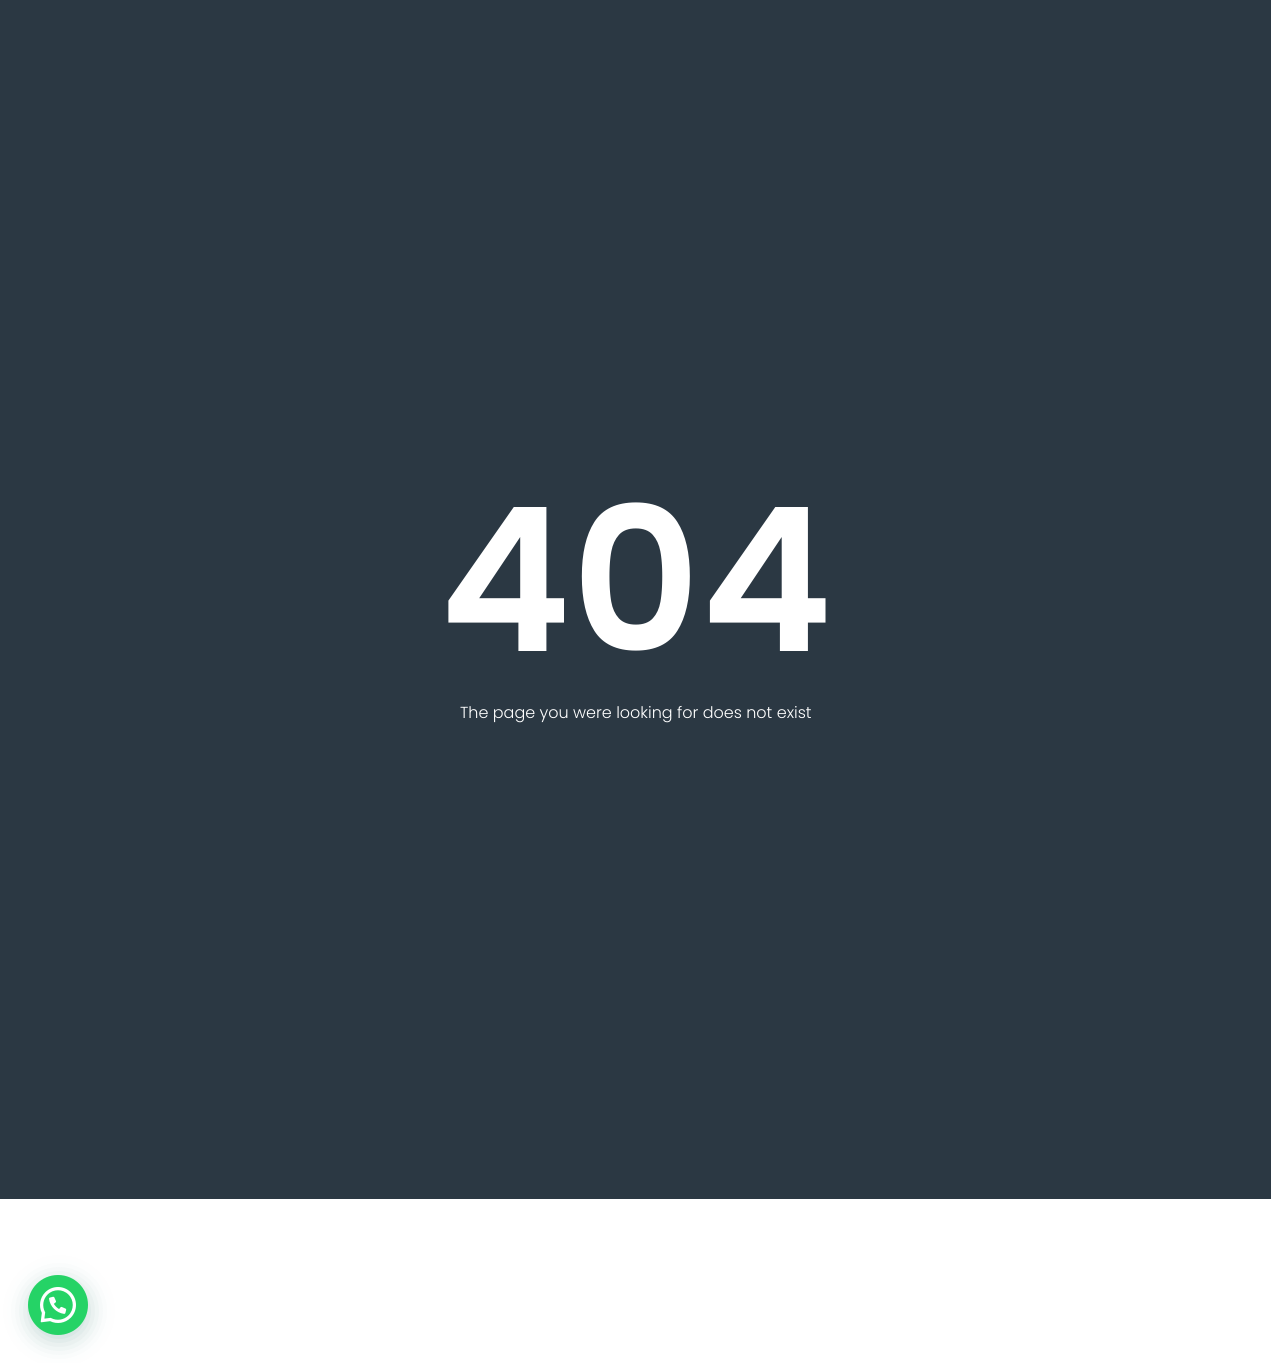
import math
import cairo

surface = cairo.ImageSurface(cairo.FORMAT_RGB24, 1271, 1363)
cr = cairo.Context(surface)
options = cairo.FontOptions()
options.set_hint_metrics(cairo.HINT_METRICS_OFF)
options.set_hint_style(cairo.HINT_STYLE_NONE)
cr.set_font_options(options)
cr.set_miter_limit(4)


def rgb(code):
    cr.set_source_rgb(*(v / 255 for v in bytes.fromhex(code[-6:])))


def rrect(x, y, w, h, r):
    cr.new_sub_path()
    for i, (u, v) in enumerate([(x + w - r, y + h - r), (x + r, y + h - r), (x + r, y + r), (x + w - r, y + r)]):
        cr.arc(u, v, r, i * math.pi / 2, (i + 1) * math.pi / 2)
    cr.close_path()


def soft_shadow(x, y, w, h, r, blur, alpha):
    cr.push_group_with_content(cairo.CONTENT_ALPHA)
    cr.set_operator(cairo.OPERATOR_SOURCE)
    for i in range(15, -16, -2):
        e = blur * i / 6
        if min(w, h) + 2 * e > 0:
            cr.set_source_rgba(0, 0, 0, alpha * math.erfc((i - 1) / 8.5) / 2)
            rrect(x - e, y - e, w + 2 * e, h + 2 * e, max(0, min(r + e + blur * .6, min(w, h) / 2 + e)))
            cr.fill()
    cr.mask(cr.pop_group())


def image(path, x, y, w, h):
    cr.save()
    cr.set_source_surface(cairo.ImageSurface.create_from_png(path), x, y)
    cr.rectangle(x, y, w, h)
    cr.fill()
    cr.restore()


rgb("#ffffff")
cr.paint()
rgb("#2b3843")
cr.rectangle(0, 0, 1271, 1199)
cr.fill()
rgb("#075e54")
soft_shadow(29, 1281, 60, 60, 30, 12, 0.24)
rgb("#25d366")
cr.arc(58, 1305, 30, 0, 2 * math.pi)
cr.fill()
image("img/1.png", 40, 1287, 36, 36)
cr.select_font_face("Poppins SemiBold")
cr.set_font_size(200)
rgb("#ffffff")
cr.move_to(439, 651)
cr.show_text("404")
cr.select_font_face("Poppins Light")
cr.set_font_size(16)
cr.move_to(460, 718)
cr.show_text("The page you were looking for does not exist")
surface.write_to_png("page.png")
